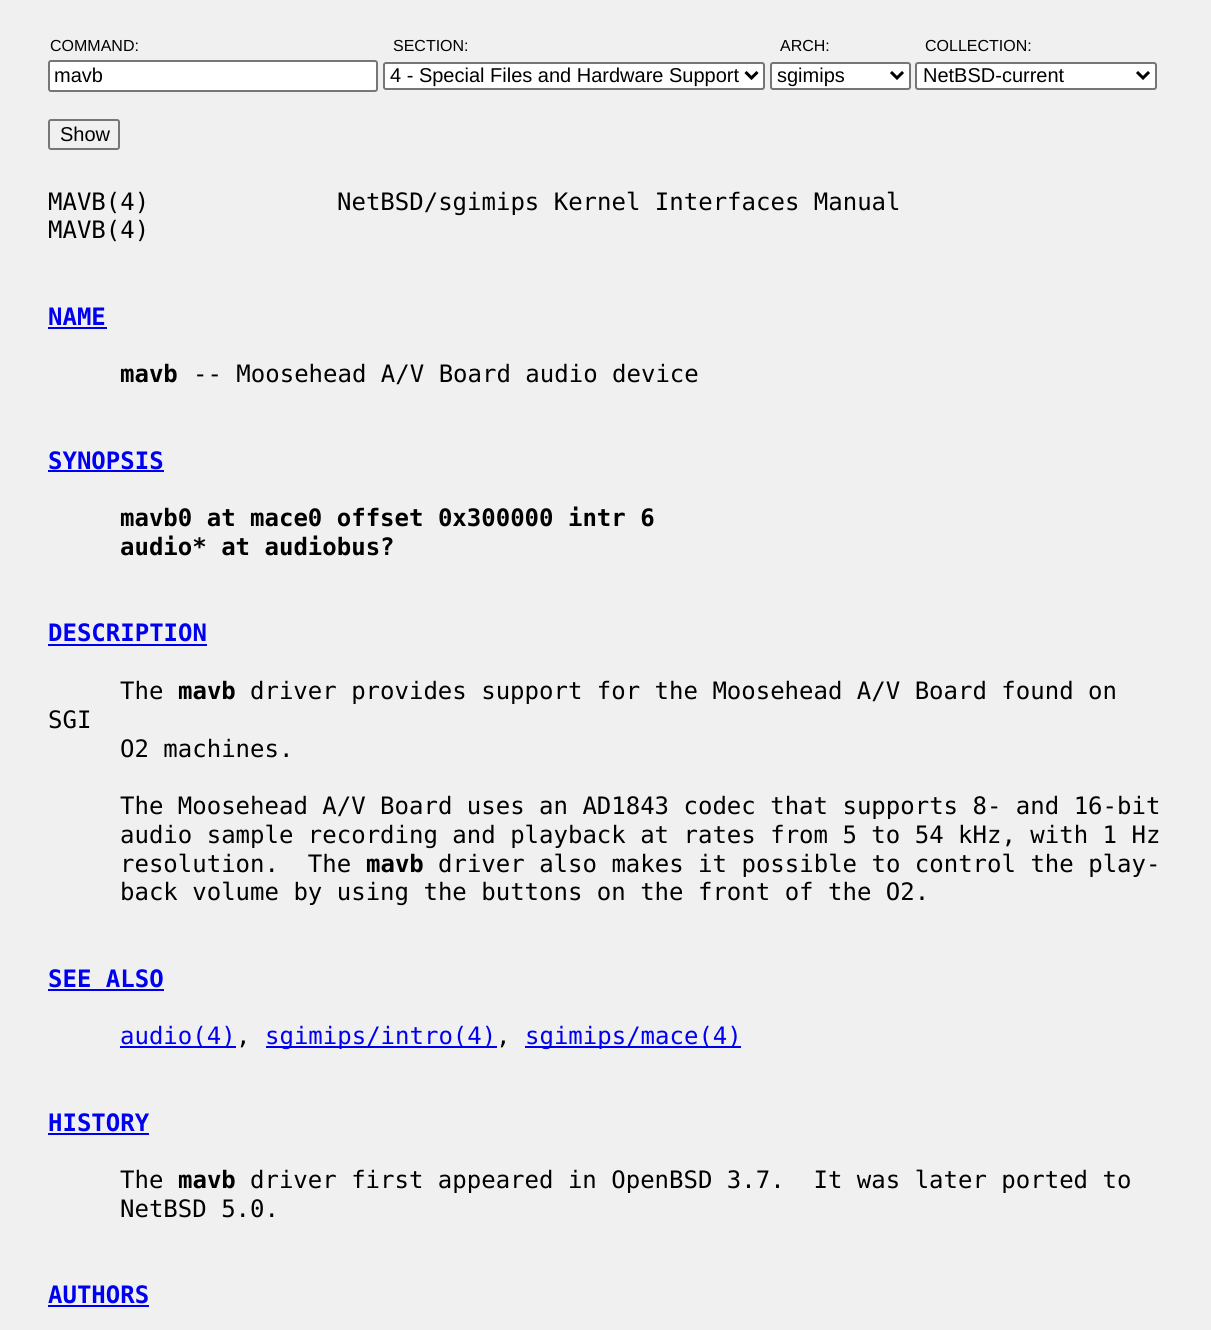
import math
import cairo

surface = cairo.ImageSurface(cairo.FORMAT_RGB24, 1211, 1330)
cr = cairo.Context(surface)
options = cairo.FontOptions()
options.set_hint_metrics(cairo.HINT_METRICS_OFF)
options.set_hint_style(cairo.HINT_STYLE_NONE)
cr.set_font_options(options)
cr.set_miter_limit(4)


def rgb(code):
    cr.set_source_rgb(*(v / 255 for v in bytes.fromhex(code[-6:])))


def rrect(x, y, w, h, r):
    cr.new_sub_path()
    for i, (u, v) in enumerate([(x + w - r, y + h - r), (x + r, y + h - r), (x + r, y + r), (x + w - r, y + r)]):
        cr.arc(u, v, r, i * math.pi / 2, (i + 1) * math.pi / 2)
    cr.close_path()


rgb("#f0f0f0")
cr.paint()
rgb("#ffffff")
rrect(49, 61, 328, 30, 2)
cr.fill_preserve()
rgb("#767676")
cr.stroke()
rgb("#ffffff")
rrect(384, 63, 380, 26, 2)
cr.fill_preserve()
rgb("#767676")
cr.stroke()
cr.new_path()
cr.move_to(745.5, 72)
cr.line_to(751.5, 78)
cr.line_to(757.5, 72)
rgb("#000000")
cr.set_line_width(3)
cr.stroke()
rgb("#ffffff")
rrect(771, 63, 139, 26, 2)
cr.fill_preserve()
rgb("#767676")
cr.set_line_width(2)
cr.stroke()
cr.new_path()
cr.move_to(891, 72)
cr.line_to(897, 78)
cr.line_to(903, 72)
rgb("#000000")
cr.set_line_width(3)
cr.stroke()
rgb("#ffffff")
rrect(916, 63, 240, 26, 2)
cr.fill_preserve()
rgb("#767676")
cr.set_line_width(2)
cr.stroke()
cr.new_path()
cr.move_to(1137, 72)
cr.line_to(1143, 78)
cr.line_to(1149, 72)
rgb("#000000")
cr.set_line_width(3)
cr.stroke()
rrect(49, 120, 70, 29, 2)
rgb("#767676")
cr.set_line_width(2)
cr.stroke()
for x, y, w, h, color in [
    (48, 327, 59, 2, "#0000f0"),
    (48, 470, 116, 2, "#0000f0"),
    (48, 644, 159, 2, "#0000f0"),
    (48, 989, 116, 2, "#0000f0"),
    (120, 1046, 116, 2, "#0000f0"),
    (266, 1046, 231, 2, "#0000f0"),
    (525, 1046, 216, 2, "#0000f0"),
    (48, 1133, 101, 2, "#0000f0"),
    (48, 1305, 101, 2, "#0000f0"),
]:
    rgb(color)
    cr.rectangle(x, y, w, h)
    cr.fill()
cr.select_font_face("Liberation Sans")
cr.set_font_size(16)
rgb("#000000")
cr.move_to(50, 51)
cr.show_text("COMMAND:")
cr.set_font_size(20)
cr.move_to(54, 82)
cr.show_text("mavb")
cr.set_font_size(16)
cr.move_to(393, 51)
cr.show_text("SECTION:")
cr.set_font_size(20)
cr.move_to(390, 82)
cr.show_text("4 - Special Files and Hardware Support")
cr.set_font_size(16)
cr.move_to(780, 51)
cr.show_text("ARCH:")
cr.set_font_size(20)
cr.move_to(777, 82)
cr.show_text("sgimips")
cr.set_font_size(16)
cr.move_to(925, 51)
cr.show_text("COLLECTION:")
cr.set_font_size(20)
cr.move_to(923, 82)
cr.show_text("NetBSD-current")
cr.move_to(60, 141)
cr.show_text("Show")
cr.select_font_face("DejaVu Sans Mono")
cr.set_font_size(24)
cr.move_to(48, 210)
cr.show_text("MAVB(4)             NetBSD/sgimips Kernel Interfaces Manual")
cr.move_to(48, 238)
cr.show_text("MAVB(4)")
cr.select_font_face("DejaVu Sans Mono", cairo.FONT_SLANT_NORMAL, cairo.FONT_WEIGHT_BOLD)
rgb("#0000f0")
cr.move_to(48, 325)
cr.show_text("NAME")
rgb("#000000")
cr.move_to(120, 382)
cr.show_text("mavb")
cr.select_font_face("DejaVu Sans Mono")
cr.move_to(193, 382)
cr.show_text("-- Moosehead A/V Board audio device")
cr.select_font_face("DejaVu Sans Mono", cairo.FONT_SLANT_NORMAL, cairo.FONT_WEIGHT_BOLD)
rgb("#0000f0")
cr.move_to(48, 469)
cr.show_text("SYNOPSIS")
rgb("#000000")
cr.move_to(120, 526)
cr.show_text("mavb0 at mace0 offset 0x300000 intr 6")
cr.move_to(120, 555)
cr.show_text("audio* at audiobus?")
rgb("#0000f0")
cr.move_to(48, 641)
cr.show_text("DESCRIPTION")
cr.select_font_face("DejaVu Sans Mono")
rgb("#000000")
cr.move_to(120, 699)
cr.show_text("The")
cr.select_font_face("DejaVu Sans Mono", cairo.FONT_SLANT_NORMAL, cairo.FONT_WEIGHT_BOLD)
cr.move_to(178, 699)
cr.show_text("mavb")
cr.select_font_face("DejaVu Sans Mono")
for x, y, s in [
    (250, 699, "driver provides support for the Moosehead A/V Board found on"),
    (48, 728, "SGI"),
    (120, 757, "O2 machines."),
    (120, 814, "The Moosehead A/V Board uses an AD1843 codec that supports 8- and 16-bit"),
    (120, 843, "audio sample recording and playback at rates from 5 to 54 kHz, with 1 Hz"),
    (120, 872, "resolution.  The"),
]:
    cr.move_to(x, y)
    cr.show_text(s)
cr.select_font_face("DejaVu Sans Mono", cairo.FONT_SLANT_NORMAL, cairo.FONT_WEIGHT_BOLD)
cr.move_to(366, 872)
cr.show_text("mavb")
cr.select_font_face("DejaVu Sans Mono")
cr.move_to(438, 872)
cr.show_text("driver also makes it possible to control the play-")
cr.move_to(120, 900)
cr.show_text("back volume by using the buttons on the front of the O2.")
cr.select_font_face("DejaVu Sans Mono", cairo.FONT_SLANT_NORMAL, cairo.FONT_WEIGHT_BOLD)
rgb("#0000f0")
cr.move_to(48, 987)
cr.show_text("SEE ALSO")
cr.select_font_face("DejaVu Sans Mono")
cr.move_to(120, 1044)
cr.show_text("audio(4)")
rgb("#000000")
cr.move_to(236, 1044)
cr.show_text(",")
rgb("#0000f0")
cr.move_to(265, 1044)
cr.show_text("sgimips/intro(4)")
rgb("#000000")
cr.move_to(496, 1044)
cr.show_text(",")
rgb("#0000f0")
cr.move_to(525, 1044)
cr.show_text("sgimips/mace(4)")
cr.select_font_face("DejaVu Sans Mono", cairo.FONT_SLANT_NORMAL, cairo.FONT_WEIGHT_BOLD)
cr.move_to(48, 1131)
cr.show_text("HISTORY")
cr.select_font_face("DejaVu Sans Mono")
rgb("#000000")
cr.move_to(120, 1188)
cr.show_text("The")
cr.select_font_face("DejaVu Sans Mono", cairo.FONT_SLANT_NORMAL, cairo.FONT_WEIGHT_BOLD)
cr.move_to(178, 1188)
cr.show_text("mavb")
cr.select_font_face("DejaVu Sans Mono")
cr.move_to(250, 1188)
cr.show_text("driver first appeared in OpenBSD 3.7.  It was later ported to")
cr.move_to(120, 1217)
cr.show_text("NetBSD 5.0.")
cr.select_font_face("DejaVu Sans Mono", cairo.FONT_SLANT_NORMAL, cairo.FONT_WEIGHT_BOLD)
rgb("#0000f0")
cr.move_to(48, 1303)
cr.show_text("AUTHORS")
surface.write_to_png("page.png")
